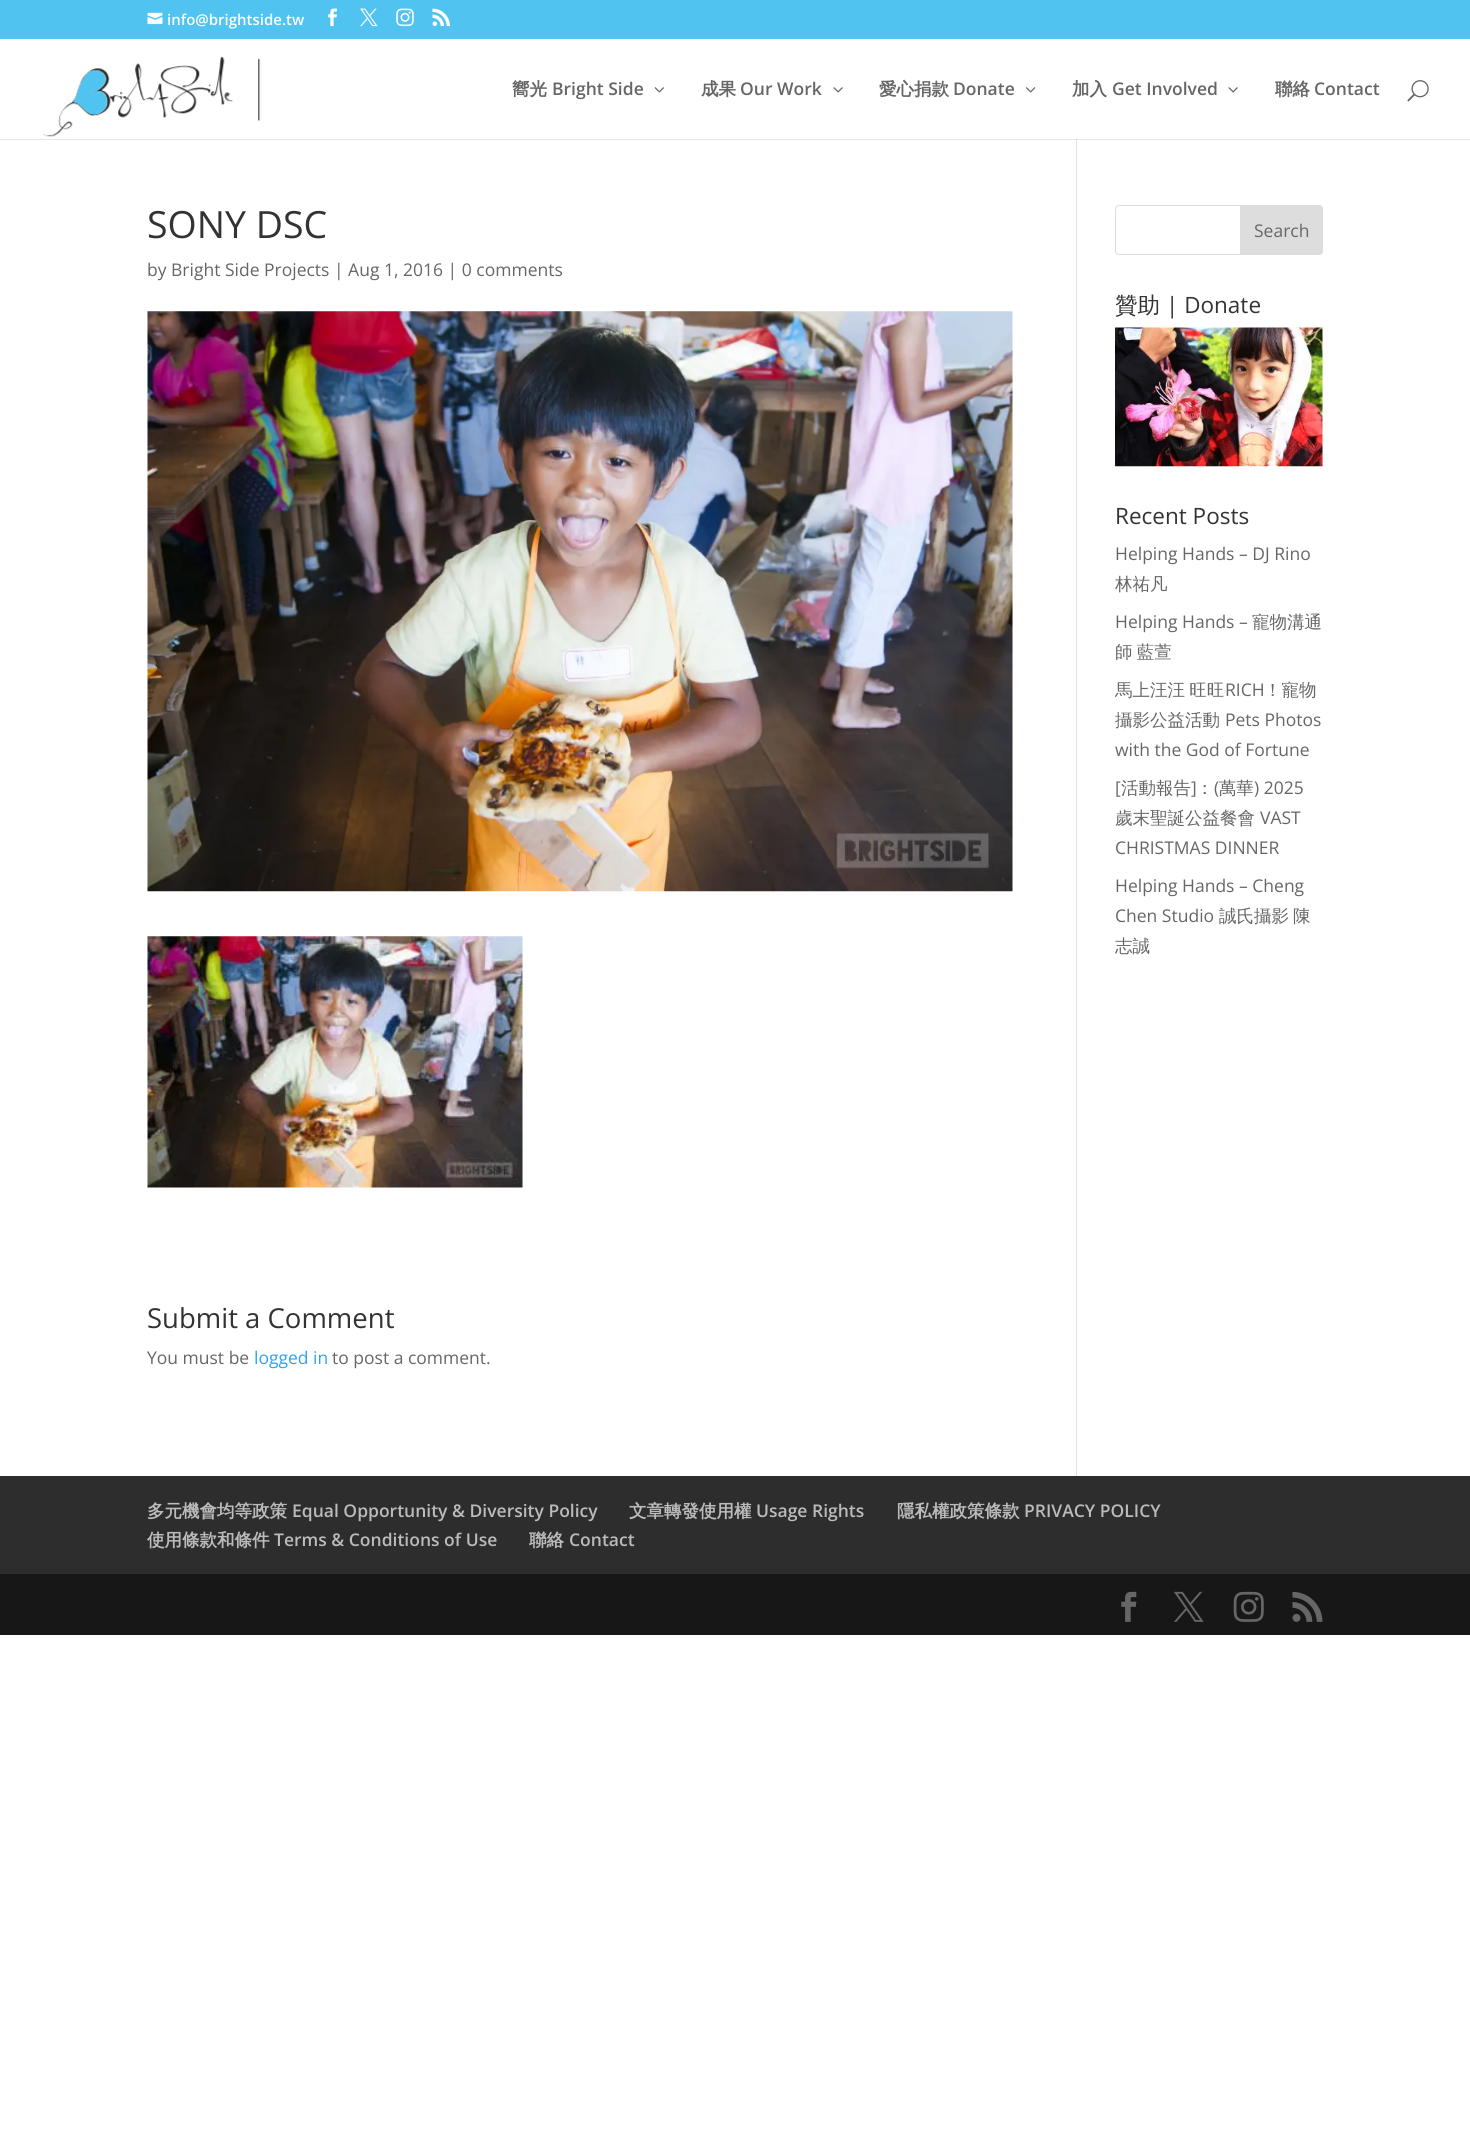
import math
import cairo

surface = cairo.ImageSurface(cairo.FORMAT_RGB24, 1470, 2140)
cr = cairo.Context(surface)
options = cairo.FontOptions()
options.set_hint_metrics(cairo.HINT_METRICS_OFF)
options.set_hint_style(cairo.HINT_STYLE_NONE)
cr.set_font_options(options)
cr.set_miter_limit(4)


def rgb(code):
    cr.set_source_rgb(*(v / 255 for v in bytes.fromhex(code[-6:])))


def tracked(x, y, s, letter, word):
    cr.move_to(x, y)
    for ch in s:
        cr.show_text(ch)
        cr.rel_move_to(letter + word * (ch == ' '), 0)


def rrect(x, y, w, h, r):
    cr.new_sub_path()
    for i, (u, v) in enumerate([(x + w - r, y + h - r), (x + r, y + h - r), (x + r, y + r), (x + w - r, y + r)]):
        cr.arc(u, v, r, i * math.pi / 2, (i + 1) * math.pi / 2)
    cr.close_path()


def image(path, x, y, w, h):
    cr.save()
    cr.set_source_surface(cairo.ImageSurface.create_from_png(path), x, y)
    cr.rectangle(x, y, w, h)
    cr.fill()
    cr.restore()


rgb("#ffffff")
cr.paint()
rgb("#e6e6e6")
cr.rectangle(0, 139, 1470, 1)
cr.fill()
rgb("#51c3f1")
cr.rectangle(0, 0, 1470, 39)
cr.fill()
image("img/1.png", 147, 12, 16, 13)
image("img/2.png", 328, 8, 9, 19)
image("img/3.png", 360, 8, 18, 19)
image("img/4.png", 396, 8, 18, 19)
image("img/5.png", 432, 8, 18, 19)
rgb("#e2e2e2")
cr.rectangle(1076, 133, 1, 1343)
cr.fill()
rgb("#ffffff")
cr.rectangle(1076, 133, 1, 6)
cr.fill()
image("img/6.png", 43, 56, 218, 81)
image("img/7.png", 654, 87, 10, 6)
image("img/8.png", 833, 87, 10, 6)
image("img/9.png", 1026, 87, 10, 6)
image("img/8.png", 1228, 87, 10, 6)
image("img/10.png", 1407, 80, 22, 22)
rgb("#cbcbcb")
cr.rectangle(1076, 139, 1, 1)
cr.fill()
image("img/11.png", 147, 311, 866, 581)
image("img/12.png", 147, 936, 376, 252)
rrect(1115.5, 205.5, 207, 49, 3.5)
rgb("#dddddd")
cr.set_line_width(1)
cr.stroke()
cr.new_path()
cr.move_to(1240.5, 205.5)
cr.line_to(1319, 205.5)
cr.curve_to(1321, 205.5, 1322.5, 207, 1322.5, 209)
cr.line_to(1322.5, 251)
cr.curve_to(1322.5, 253, 1321, 254.5, 1319, 254.5)
cr.line_to(1240.5, 254.5)
cr.close_path()
cr.fill_preserve()
cr.stroke()
image("img/13.png", 1115, 327, 208, 140)
rgb("#2d2d2d")
cr.rectangle(0, 1476, 1470, 98)
cr.fill()
rgb("#171717")
cr.rectangle(0, 1574, 1470, 61)
cr.fill()
image("img/14.png", 1121, 1591, 16, 31)
image("img/15.png", 1174, 1591, 30, 31)
image("img/16.png", 1233, 1591, 31, 31)
image("img/17.png", 1292, 1591, 31, 31)
cr.select_font_face("Open Sans SemiBold")
cr.set_font_size(15)
rgb("#ffffff")
cr.move_to(167, 25)
cr.show_text("info@brightside.tw")
cr.select_font_face("WenQuanYi Zen Hei", cairo.FONT_SLANT_NORMAL, cairo.FONT_WEIGHT_BOLD)
cr.set_font_size(17.5)
rgb("#666666")
cr.move_to(512, 95)
cr.show_text("嚮光")
cr.select_font_face("Open Sans SemiBold")
cr.move_to(552, 95)
cr.show_text("Bright Side")
cr.select_font_face("WenQuanYi Zen Hei", cairo.FONT_SLANT_NORMAL, cairo.FONT_WEIGHT_BOLD)
cr.move_to(701, 95)
cr.show_text("成果")
cr.select_font_face("Open Sans SemiBold")
cr.move_to(740, 95)
cr.show_text("Our Work")
cr.select_font_face("WenQuanYi Zen Hei", cairo.FONT_SLANT_NORMAL, cairo.FONT_WEIGHT_BOLD)
cr.move_to(879, 95)
cr.show_text("愛心捐款")
cr.select_font_face("Open Sans SemiBold")
cr.move_to(953, 95)
cr.show_text("Donate")
cr.select_font_face("WenQuanYi Zen Hei", cairo.FONT_SLANT_NORMAL, cairo.FONT_WEIGHT_BOLD)
cr.move_to(1072, 95)
cr.show_text("加入")
cr.select_font_face("Open Sans SemiBold")
cr.move_to(1112, 95)
cr.show_text("Get Involved")
cr.select_font_face("WenQuanYi Zen Hei", cairo.FONT_SLANT_NORMAL, cairo.FONT_WEIGHT_BOLD)
cr.move_to(1275, 95)
cr.show_text("聯絡")
cr.select_font_face("Open Sans SemiBold")
cr.move_to(1314, 95)
cr.show_text("Contact")
cr.select_font_face("Open Sans")
cr.set_font_size(37.5)
rgb("#333333")
cr.move_to(147, 238)
cr.show_text("SONY DSC")
cr.set_font_size(17.5)
rgb("#666666")
cr.move_to(147, 276)
cr.show_text("by Bright Side Projects | Aug 1, 2016 | 0 comments")
cr.set_font_size(27.5)
rgb("#333333")
cr.move_to(147, 1328)
cr.show_text("Submit a Comment")
cr.set_font_size(17.5)
rgb("#666666")
cr.move_to(147, 1364)
cr.show_text("You must be")
rgb("#2ea3f2")
cr.move_to(254, 1364)
cr.show_text("logged in")
rgb("#666666")
cr.move_to(332, 1364)
cr.show_text("to post a comment.")
cr.move_to(1254, 237)
cr.show_text("Search")
cr.select_font_face("WenQuanYi Zen Hei Medium")
cr.set_font_size(22.5)
rgb("#333333")
cr.move_to(1115, 313)
cr.show_text("贊助")
cr.select_font_face("Open Sans")
cr.move_to(1166, 313)
cr.show_text("| Donate")
cr.move_to(1115, 524)
cr.show_text("Recent Posts")
cr.set_font_size(17.5)
rgb("#666666")
cr.move_to(1115, 560)
cr.show_text("Helping Hands – DJ Rino")
cr.select_font_face("WenQuanYi Zen Hei Medium")
cr.move_to(1115, 590)
cr.show_text("林祐凡")
cr.select_font_face("Open Sans")
cr.move_to(1115, 628)
cr.show_text("Helping Hands –")
cr.select_font_face("WenQuanYi Zen Hei Medium")
cr.move_to(1252, 628)
cr.show_text("寵物溝通")
tracked(1115, 658, "師 藍萱", 0, -1)
tracked(1115, 696, "馬上汪汪 旺旺", 0, -1)
cr.select_font_face("Open Sans")
cr.move_to(1225, 696)
cr.show_text("RICH")
cr.select_font_face("WenQuanYi Zen Hei Medium")
cr.move_to(1264, 696)
cr.show_text("！寵物")
cr.move_to(1115, 726)
cr.show_text("攝影公益活動")
cr.select_font_face("Open Sans")
for x, y, s in [
    (1225, 726, "Pets Photos"),
    (1115, 756, "with the God of Fortune"),
    (1115, 794, "["),
]:
    cr.move_to(x, y)
    cr.show_text(s)
cr.select_font_face("WenQuanYi Zen Hei Medium")
cr.move_to(1121, 794)
cr.show_text("活動報告")
cr.select_font_face("Open Sans")
cr.move_to(1191, 794)
cr.show_text("]")
cr.select_font_face("WenQuanYi Zen Hei Medium")
cr.move_to(1196, 794)
cr.show_text("： 萬華")
cr.select_font_face("Open Sans")
cr.move_to(1214, 794)
cr.show_text("(")
cr.move_to(1254, 794)
cr.show_text(") 2025")
cr.select_font_face("WenQuanYi Zen Hei Medium")
cr.move_to(1115, 824)
cr.show_text("歲末聖誕公益餐會")
cr.select_font_face("Open Sans")
for x, y, s in [
    (1260, 824, "VAST"),
    (1115, 854, "CHRISTMAS DINNER"),
    (1115, 892, "Helping Hands – Cheng"),
    (1115, 922, "Chen Studio"),
]:
    cr.move_to(x, y)
    cr.show_text(s)
cr.select_font_face("WenQuanYi Zen Hei Medium")
for x, y, s in [
    (1219, 922, "誠氏攝影"),
    (1293, 922, "陳"),
    (1115, 952, "志誠"),
]:
    cr.move_to(x, y)
    cr.show_text(s)
cr.select_font_face("WenQuanYi Zen Hei", cairo.FONT_SLANT_NORMAL, cairo.FONT_WEIGHT_BOLD)
rgb("#bbbbbb")
cr.move_to(147, 1517)
cr.show_text("多元機會均等政策")
cr.select_font_face("Open Sans SemiBold")
cr.move_to(292, 1517)
cr.show_text("Equal Opportunity & Diversity Policy")
cr.select_font_face("WenQuanYi Zen Hei", cairo.FONT_SLANT_NORMAL, cairo.FONT_WEIGHT_BOLD)
cr.move_to(629, 1517)
cr.show_text("文章轉發使用權")
cr.select_font_face("Open Sans SemiBold")
cr.move_to(756, 1517)
cr.show_text("Usage Rights")
cr.select_font_face("WenQuanYi Zen Hei", cairo.FONT_SLANT_NORMAL, cairo.FONT_WEIGHT_BOLD)
cr.move_to(897, 1517)
cr.show_text("隱私權政策條款")
cr.select_font_face("Open Sans SemiBold")
cr.move_to(1024, 1517)
cr.show_text("PRIVACY POLICY")
cr.select_font_face("WenQuanYi Zen Hei", cairo.FONT_SLANT_NORMAL, cairo.FONT_WEIGHT_BOLD)
cr.move_to(147, 1546)
cr.show_text("使用條款和條件")
cr.select_font_face("Open Sans SemiBold")
cr.move_to(274, 1546)
cr.show_text("Terms & Conditions of Use")
cr.select_font_face("WenQuanYi Zen Hei", cairo.FONT_SLANT_NORMAL, cairo.FONT_WEIGHT_BOLD)
cr.move_to(529, 1546)
cr.show_text("聯絡")
cr.select_font_face("Open Sans SemiBold")
cr.move_to(569, 1546)
cr.show_text("Contact")
surface.write_to_png("page.png")
